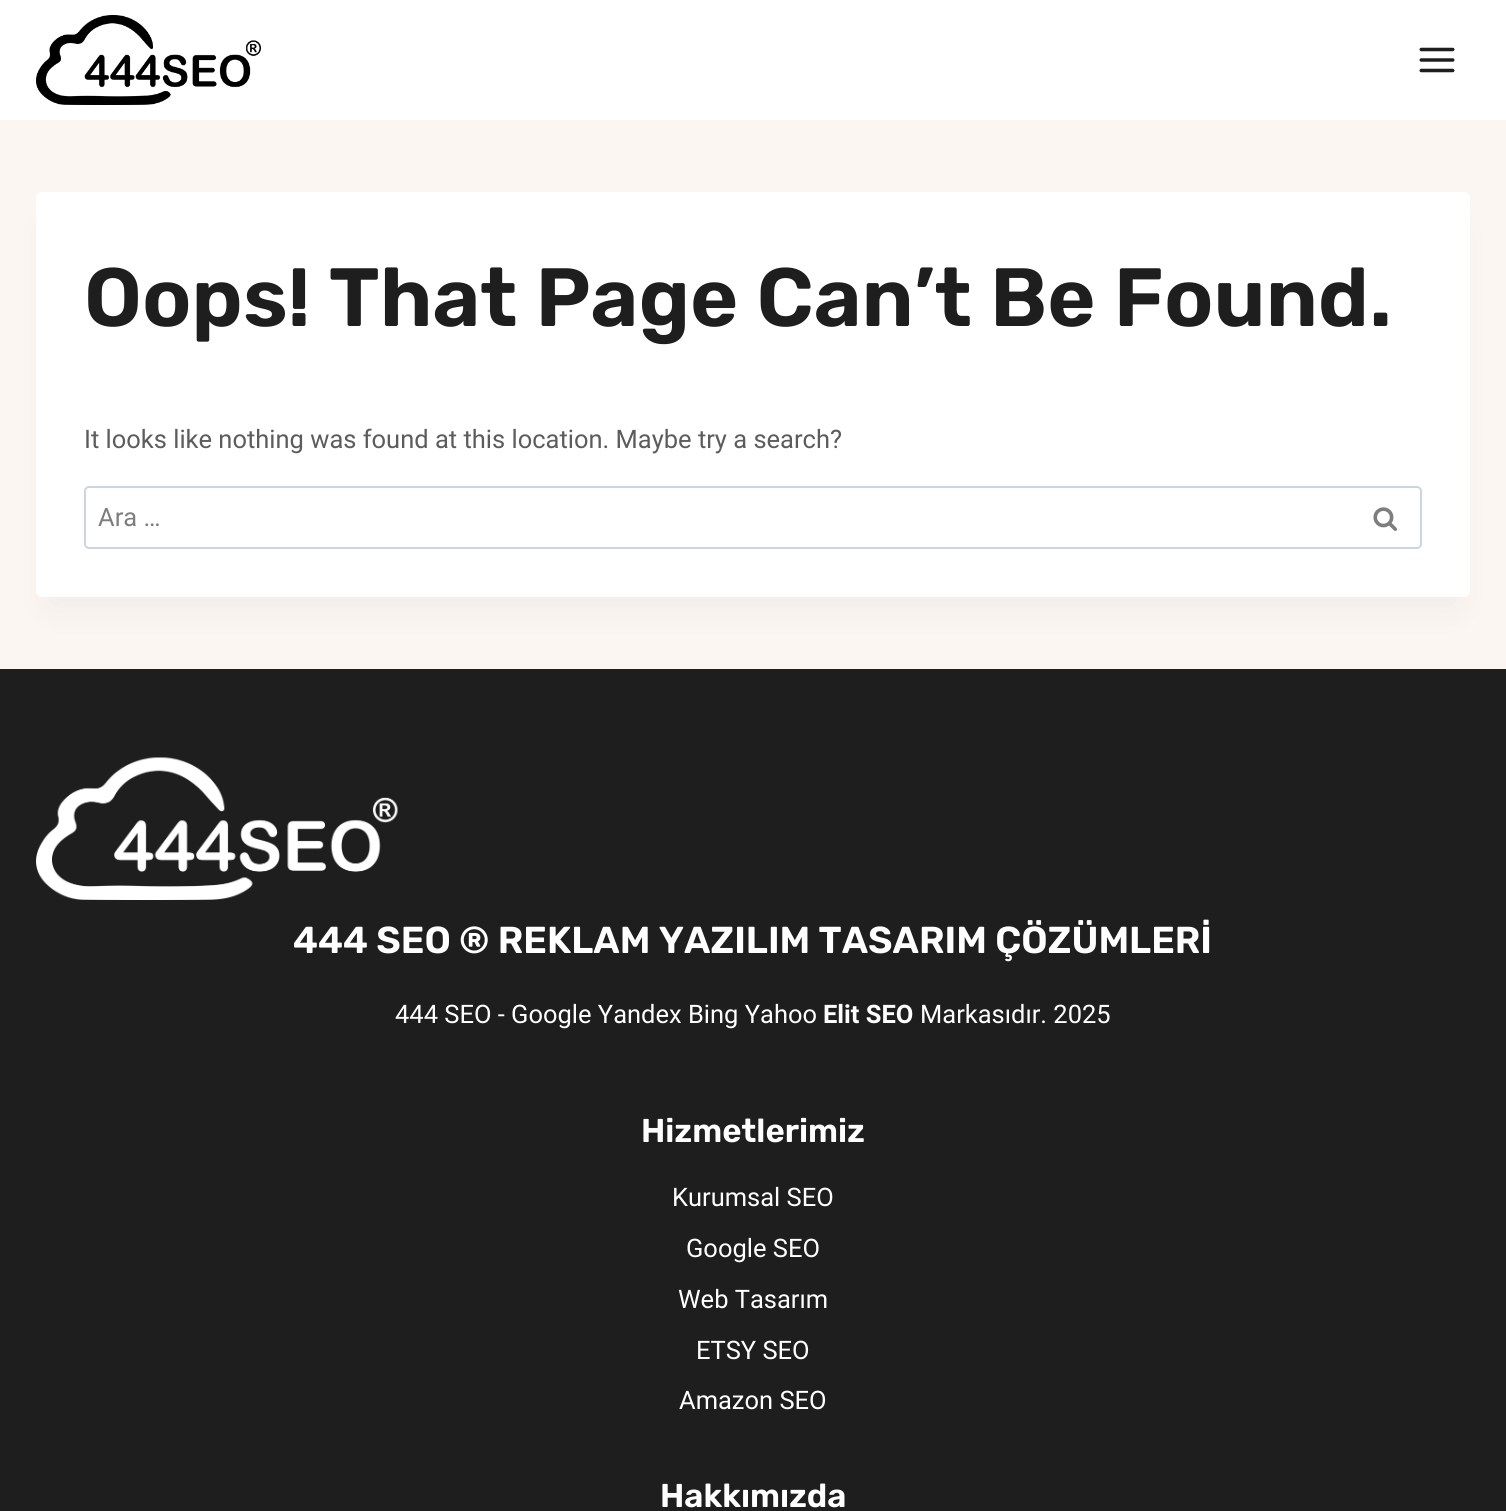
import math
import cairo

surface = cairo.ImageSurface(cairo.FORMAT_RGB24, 1506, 1511)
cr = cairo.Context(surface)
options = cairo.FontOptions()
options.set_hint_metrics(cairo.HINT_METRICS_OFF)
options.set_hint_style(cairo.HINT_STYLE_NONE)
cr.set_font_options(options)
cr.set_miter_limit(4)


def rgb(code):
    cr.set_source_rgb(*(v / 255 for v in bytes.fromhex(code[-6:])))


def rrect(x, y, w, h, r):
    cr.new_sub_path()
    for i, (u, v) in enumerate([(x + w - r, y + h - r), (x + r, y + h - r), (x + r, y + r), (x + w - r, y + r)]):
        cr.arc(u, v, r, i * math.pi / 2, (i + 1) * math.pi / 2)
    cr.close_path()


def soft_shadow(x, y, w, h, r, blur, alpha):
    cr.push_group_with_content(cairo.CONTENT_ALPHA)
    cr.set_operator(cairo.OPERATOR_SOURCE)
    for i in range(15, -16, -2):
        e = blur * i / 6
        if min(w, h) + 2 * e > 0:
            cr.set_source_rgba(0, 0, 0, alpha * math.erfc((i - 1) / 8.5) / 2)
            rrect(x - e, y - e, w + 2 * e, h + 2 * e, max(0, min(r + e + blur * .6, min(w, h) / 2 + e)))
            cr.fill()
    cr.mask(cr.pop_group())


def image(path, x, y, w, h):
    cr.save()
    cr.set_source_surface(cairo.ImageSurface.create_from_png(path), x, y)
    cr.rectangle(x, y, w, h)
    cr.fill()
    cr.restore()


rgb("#fbf6f1")
cr.paint()
rgb("#ffffff")
cr.rectangle(0, 0, 1506, 120)
cr.fill()
image("img/1.png", 36, 15, 225, 90)
image("img/2.png", 1419, 47, 36, 26)
rgb("#000000")
soft_shadow(51, 230, 1404, 375, 0, 19, 0.05)
rgb("#ffffff")
rrect(36, 192, 1434, 405, 6)
cr.fill()
rrect(85, 487, 1336, 61, 4)
rgb("#cbd5e0")
cr.stroke()
image("img/3.png", 1373, 507, 25, 24)
rgb("#1e1e1e")
cr.rectangle(0, 669, 1506, 842)
cr.fill()
image("img/4.png", 36, 757, 362, 143)
cr.select_font_face("Rubik SemiBold")
cr.set_font_size(82.5)
cr.move_to(84, 326)
cr.show_text("Oops! That Page Can’t Be Found.")
cr.select_font_face("Roboto")
cr.set_font_size(25.5)
rgb("#5c5c5c")
cr.move_to(84, 448)
cr.show_text("It looks like nothing was found at this location. Maybe try a search?")
rgb("#7e7e7e")
cr.move_to(98, 526)
cr.show_text("Ara …")
cr.select_font_face("Rubik SemiBold")
cr.set_font_size(37.5)
rgb("#ffffff")
cr.move_to(293, 953)
cr.show_text("444 SEO ® REKLAM YAZILIM TASARIM ÇÖZÜMLERİ")
cr.select_font_face("Roboto")
cr.set_font_size(25.5)
cr.move_to(395, 1023)
cr.show_text("444 SEO - Google Yandex Bing Yahoo")
cr.select_font_face("Roboto", cairo.FONT_SLANT_NORMAL, cairo.FONT_WEIGHT_BOLD)
cr.move_to(823, 1023)
cr.show_text("Elit SEO")
cr.select_font_face("Roboto")
cr.move_to(920, 1023)
cr.show_text("Markasıdır. 2025")
cr.select_font_face("Rubik SemiBold")
cr.set_font_size(33)
cr.move_to(641, 1142)
cr.show_text("Hizmetlerimiz")
cr.select_font_face("Roboto")
cr.set_font_size(25.5)
for x, y, s in [
    (672, 1206, "Kurumsal SEO"),
    (686, 1257, "Google SEO"),
    (678, 1308, "Web Tasarım"),
    (696, 1359, "ETSY SEO"),
    (679, 1409, "Amazon SEO"),
]:
    cr.move_to(x, y)
    cr.show_text(s)
cr.select_font_face("Rubik SemiBold")
cr.set_font_size(33)
cr.move_to(660, 1507)
cr.show_text("Hakkımızda")
surface.write_to_png("page.png")
